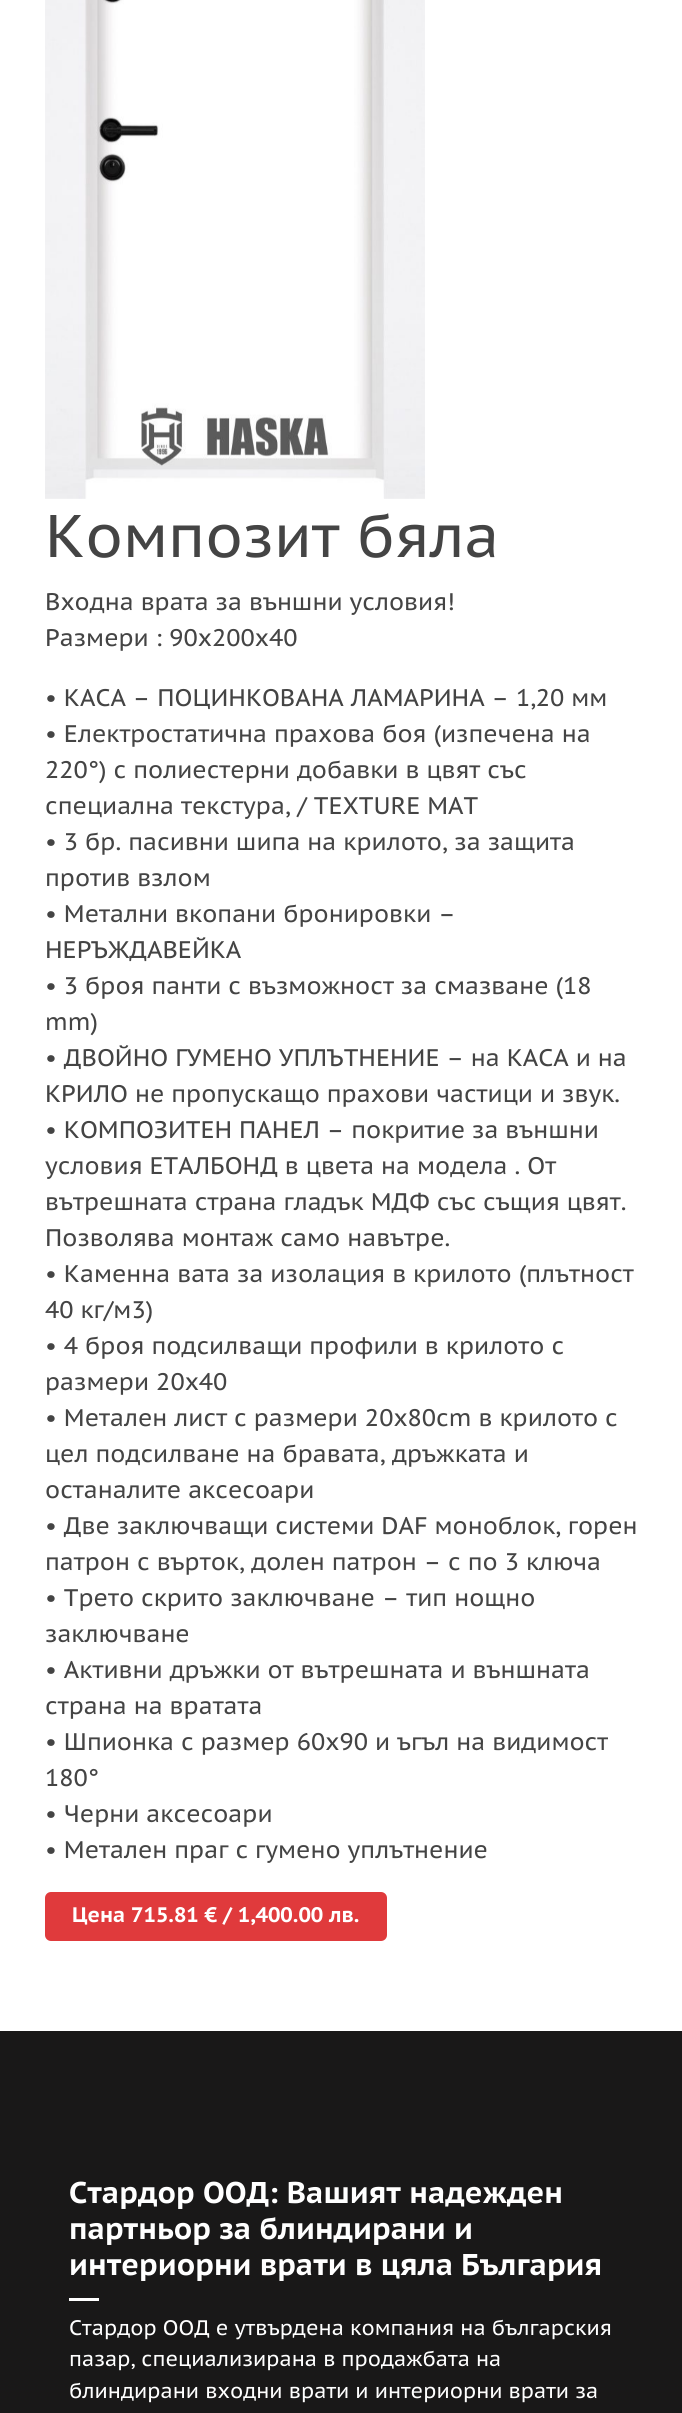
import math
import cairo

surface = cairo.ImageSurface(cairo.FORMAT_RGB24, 682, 2413)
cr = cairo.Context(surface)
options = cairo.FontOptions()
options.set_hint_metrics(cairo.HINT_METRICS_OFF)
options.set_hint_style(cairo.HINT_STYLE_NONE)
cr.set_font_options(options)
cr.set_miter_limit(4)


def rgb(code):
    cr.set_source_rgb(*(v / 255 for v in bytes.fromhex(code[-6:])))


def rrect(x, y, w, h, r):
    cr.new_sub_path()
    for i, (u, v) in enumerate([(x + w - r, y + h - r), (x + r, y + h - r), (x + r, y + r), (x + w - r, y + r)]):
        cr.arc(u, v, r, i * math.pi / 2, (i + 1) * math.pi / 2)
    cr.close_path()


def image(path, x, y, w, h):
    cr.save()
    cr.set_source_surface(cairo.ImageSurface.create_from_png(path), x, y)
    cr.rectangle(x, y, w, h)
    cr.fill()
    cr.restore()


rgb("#ffffff")
cr.paint()
image("img/1.png", 45, 0, 380, 499)
rgb("#e03a3c")
rrect(45, 1892, 342, 49, 6)
cr.fill()
rgb("#191818")
cr.rectangle(0, 2031, 682, 382)
cr.fill()
rgb("#ffffff")
cr.rectangle(69, 2298, 30, 3)
cr.fill()
cr.select_font_face("PT Sans Caption")
cr.set_font_size(60)
rgb("#444444")
cr.move_to(45, 557)
cr.show_text("Композит бяла")
cr.set_font_size(24)
for x, y, s in [
    (45, 610, "Входна врата за външни условия!"),
    (45, 646, "Размери : 90х200х40"),
    (45, 706, "• КАСА – ПОЦИНКОВАНА ЛАМАРИНА – 1,20 мм"),
    (45, 742, "• Електростатична прахова боя (изпечена на"),
    (45, 778, "220°) с полиестерни добавки в цвят със"),
    (45, 814, "специална текстура, / TEXTURE MAT"),
    (45, 850, "• 3 бр. пасивни шипа на крилото, за защита"),
    (45, 886, "против взлом"),
    (45, 922, "• Метални вкопани бронировки –"),
    (45, 958, "НЕРЪЖДАВЕЙКА"),
    (45, 994, "• 3 броя панти с възможност за смазване (18"),
    (45, 1030, "mm)"),
    (45, 1066, "• ДВОЙНО ГУМЕНО УПЛЪТНЕНИЕ – на КАСА и на"),
    (45, 1102, "КРИЛО не пропускащо прахови частици и звук."),
    (45, 1138, "• КОМПОЗИТЕН ПАНЕЛ – покритие за външни"),
    (45, 1174, "условия ЕТАЛБОНД в цвета на модела . От"),
    (45, 1210, "вътрешната страна гладък МДФ със същия цвят."),
    (45, 1246, "Позволява монтаж само навътре."),
    (45, 1282, "• Каменна вата за изолация в крилото (плътност"),
    (45, 1318, "40 кг/м3)"),
    (45, 1354, "• 4 броя подсилващи профили в крилото с"),
    (45, 1390, "размери 20х40"),
    (45, 1426, "• Метален лист с размери 20х80cm в крилото с"),
    (45, 1462, "цел подсилване на бравата, дръжката и"),
    (45, 1498, "останалите аксесоари"),
    (45, 1534, "• Две заключващи системи DAF моноблок, горен"),
    (45, 1570, "патрон с върток, долен патрон – с по 3 ключа"),
    (45, 1606, "• Трето скрито заключване – тип нощно"),
    (45, 1642, "заключване"),
    (45, 1678, "• Активни дръжки от вътрешната и външната"),
    (45, 1714, "страна на вратата"),
    (45, 1750, "• Шпионка с размер 60х90 и ъгъл на видимост"),
    (45, 1786, "180°"),
    (45, 1822, "• Черни аксесоари"),
    (45, 1858, "• Метален праг с гумено уплътнение"),
]:
    cr.move_to(x, y)
    cr.show_text(s)
cr.select_font_face("PT Sans Caption", cairo.FONT_SLANT_NORMAL, cairo.FONT_WEIGHT_BOLD)
cr.set_font_size(21)
rgb("#ffffff")
cr.move_to(72, 1922)
cr.show_text("Цена 715.81 € / 1,400.00 лв.")
cr.set_font_size(30)
for x, y, s in [
    (69, 2203, "Стардор ООД: Вашият надежден"),
    (69, 2239, "партньор за блиндирани и"),
    (69, 2275, "интериорни врати в цяла България"),
]:
    cr.move_to(x, y)
    cr.show_text(s)
cr.select_font_face("PT Sans Caption")
cr.set_font_size(21)
for x, y, s in [
    (69, 2335, "Стардор ООД е утвърдена компания на българския"),
    (69, 2366, "пазар, специализирана в продажбата на"),
    (69, 2398, "блиндирани входни врати и интериорни врати за"),
]:
    cr.move_to(x, y)
    cr.show_text(s)
surface.write_to_png("page.png")
